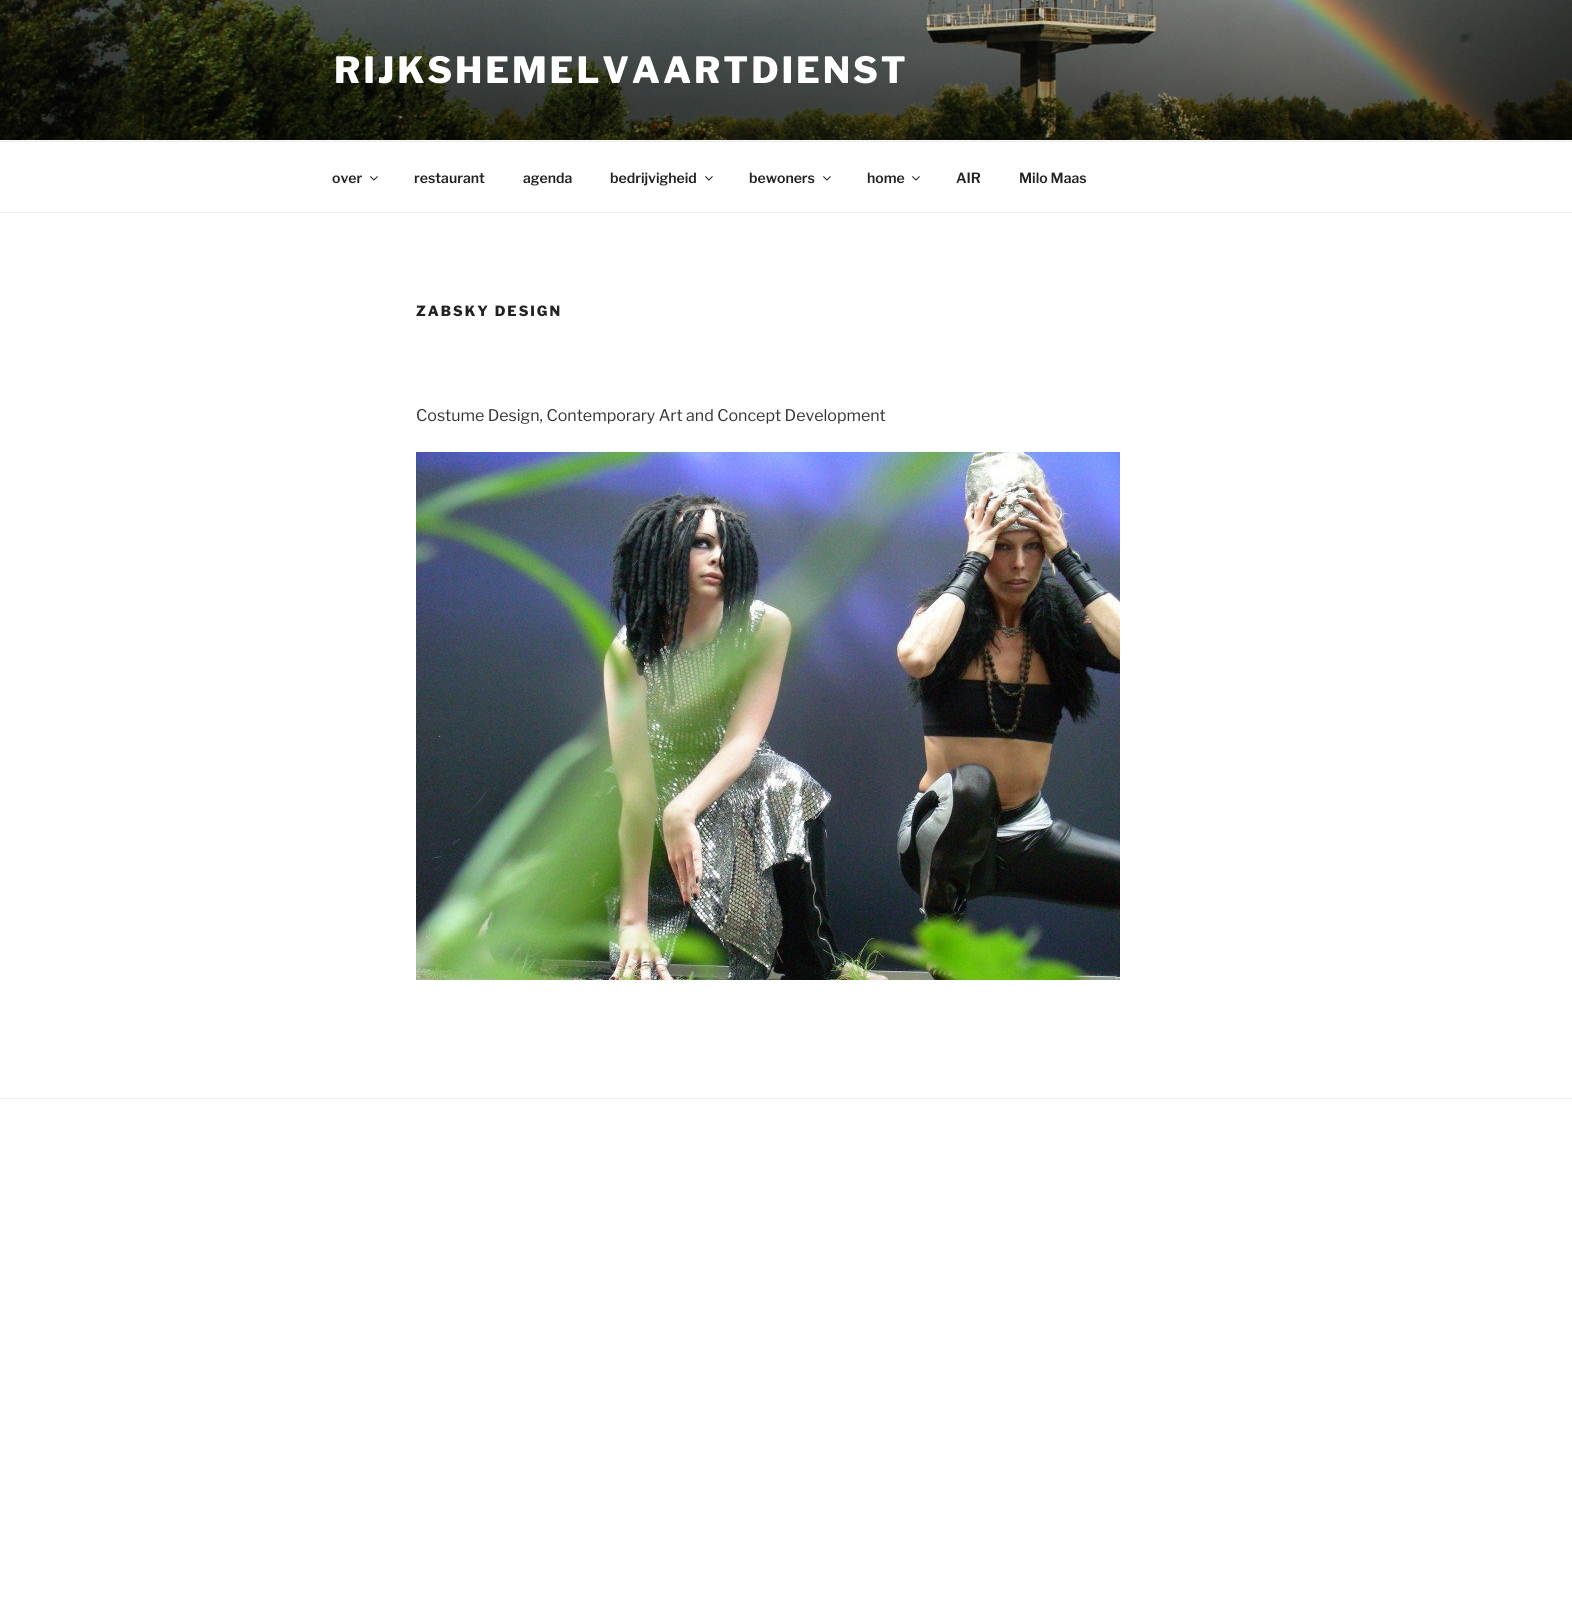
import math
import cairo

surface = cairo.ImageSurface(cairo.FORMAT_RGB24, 1572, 1624)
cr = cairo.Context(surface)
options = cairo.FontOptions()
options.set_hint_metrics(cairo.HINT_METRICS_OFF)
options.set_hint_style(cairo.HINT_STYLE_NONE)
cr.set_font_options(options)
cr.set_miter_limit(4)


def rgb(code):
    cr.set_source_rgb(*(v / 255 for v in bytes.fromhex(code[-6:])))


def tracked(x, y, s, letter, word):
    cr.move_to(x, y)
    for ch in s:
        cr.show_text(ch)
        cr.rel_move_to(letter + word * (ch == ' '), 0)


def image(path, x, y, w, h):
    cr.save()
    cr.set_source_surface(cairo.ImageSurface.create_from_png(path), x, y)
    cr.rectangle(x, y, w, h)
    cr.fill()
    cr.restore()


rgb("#ffffff")
cr.paint()
rgb("#fafafa")
cr.rectangle(0, 140, 1572, 1)
cr.fill()
image("img/1.png", 0, 0, 1572, 140)
rgb("#eeeeee")
cr.rectangle(0, 141, 1572, 1)
cr.fill()
cr.rectangle(0, 212, 1572, 1)
cr.fill()
image("img/2.png", 370, 176, 8, 5)
image("img/2.png", 705, 176, 8, 5)
image("img/2.png", 823, 176, 8, 5)
image("img/2.png", 912, 176, 8, 5)
image("img/3.png", 416, 452, 704, 528)
cr.rectangle(0, 1098, 1572, 1)
cr.fill()
cr.select_font_face("Libre Franklin ExtraBold")
cr.set_font_size(36)
rgb("#ffffff")
tracked(334, 83, "RIJKSHEMELVAARTDIENST", 2.9, 0)
cr.select_font_face("Libre Franklin SemiBold")
cr.set_font_size(14)
rgb("#222222")
for x, y, s in [
    (332, 183, "over"),
    (414, 183, "restaurant"),
    (523, 183, "agenda"),
    (610, 183, "bedrijvigheid"),
    (749, 183, "bewoners"),
    (867, 183, "home"),
    (956, 183, "AIR"),
    (1019, 183, "Milo Maas"),
]:
    cr.move_to(x, y)
    cr.show_text(s)
cr.select_font_face("Libre Franklin ExtraBold")
tracked(416, 316, "ZABSKY DESIGN", 2, 0)
cr.select_font_face("Libre Franklin")
cr.set_font_size(16)
rgb("#333333")
cr.move_to(416, 421)
cr.show_text("Costume Design, Contemporary Art and Concept Development")
surface.write_to_png("page.png")
